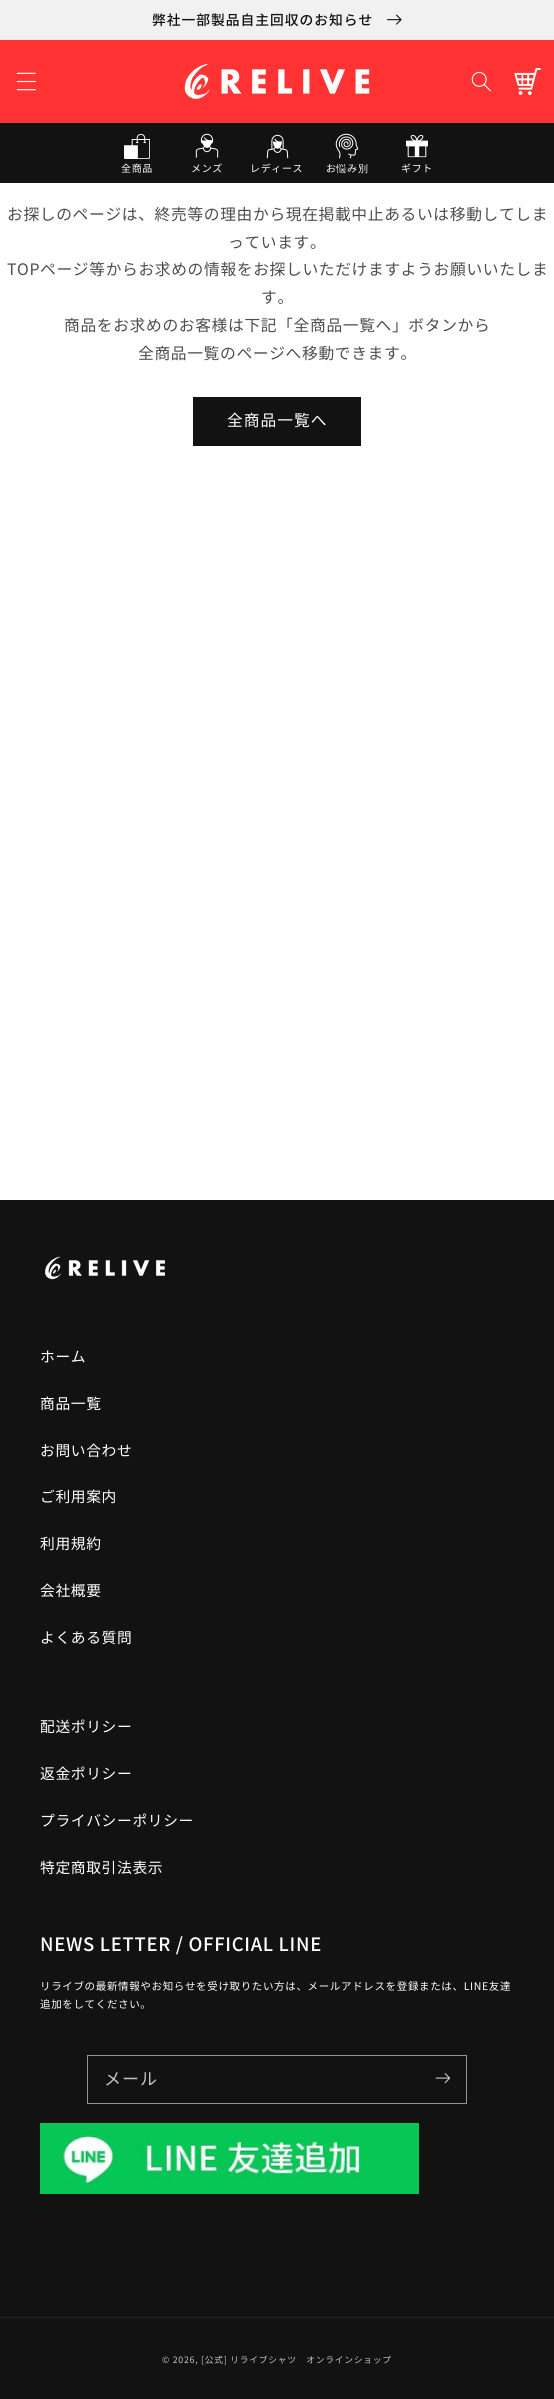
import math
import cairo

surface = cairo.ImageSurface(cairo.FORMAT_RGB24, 554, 2399)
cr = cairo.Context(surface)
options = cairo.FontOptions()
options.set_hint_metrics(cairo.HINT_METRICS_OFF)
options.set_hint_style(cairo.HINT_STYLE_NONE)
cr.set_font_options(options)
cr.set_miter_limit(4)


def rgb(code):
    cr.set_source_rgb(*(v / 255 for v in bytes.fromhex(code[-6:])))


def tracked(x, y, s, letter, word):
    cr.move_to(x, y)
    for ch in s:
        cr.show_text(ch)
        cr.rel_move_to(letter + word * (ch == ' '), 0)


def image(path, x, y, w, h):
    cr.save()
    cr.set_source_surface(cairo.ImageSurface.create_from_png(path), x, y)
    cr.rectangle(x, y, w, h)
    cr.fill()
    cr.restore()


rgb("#ffffff")
cr.paint()
rgb("#ececec")
cr.rectangle(0, 39, 554, 1)
cr.fill()
rgb("#f1f1f1")
cr.rectangle(0, 0, 554, 39)
cr.fill()
image("img/1.png", 387, 14, 15, 11)
rgb("#ff3333")
cr.rectangle(0, 40, 554, 83)
cr.fill()
image("img/2.png", 16, 72, 20, 19)
image("img/3.png", 184, 63, 186, 36)
image("img/4.png", 471, 71, 20, 21)
image("img/5.png", 514, 68, 27, 27)
rgb("#121212")
cr.rectangle(0, 123, 554, 60)
cr.fill()
image("img/6.png", 124, 134, 26, 25)
image("img/7.png", 195, 133, 24, 25)
image("img/8.png", 266, 134, 23, 25)
image("img/9.png", 335, 133, 24, 26)
image("img/10.png", 406, 135, 22, 23)
cr.rectangle(193.5, 397.5, 167, 48)
cr.set_line_width(1)
cr.stroke()
cr.rectangle(194, 398, 166, 47)
cr.fill()
cr.rectangle(0, 1200, 554, 1199)
cr.fill()
image("img/11.png", 44, 1256, 122, 24)
cr.rectangle(87.5, 2055.5, 379, 48)
rgb("#949494")
cr.stroke()
image("img/12.png", 435, 2073, 16, 11)
image("img/13.png", 40, 2123, 379, 71)
rgb("#252525")
cr.rectangle(0, 2317, 554, 1)
cr.fill()
cr.select_font_face("Noto Sans JP Medium")
cr.set_font_size(13.75)
rgb("#121212")
tracked(152, 25, "弊社一部製品自主回収のお知らせ", 1, 0)
cr.select_font_face("Noto Sans JP")
cr.set_font_size(10)
rgb("#ffffff")
for x, y, s in [
    (121, 172, "全商品"),
    (191, 172, "メンズ"),
    (250, 172, "レディース"),
    (326, 172, "お"),
]:
    tracked(x, y, s, 0.65, 0)
cr.select_font_face("WenQuanYi Zen Hei Medium")
tracked(336, 172, "悩", 0.65, 0)
cr.select_font_face("Noto Sans JP")
tracked(347, 172, "み", 0.65, 0)
cr.select_font_face("WenQuanYi Zen Hei Medium")
tracked(358, 172, "別", 0.65, 0)
cr.select_font_face("Noto Sans JP")
tracked(401, 172, "ギフト", 0.65, 0)
cr.set_font_size(15.75)
rgb("#4d4d4d")
for x, y, s in [
    (7, 220, "お探しのページは、終売等の理由から現在掲載中止あるいは移動してしま"),
    (228, 248, "っています。"),
    (7, 275, "TOPページ等からお求めの情報をお探しいただけますようお願いいたしま"),
    (261, 303, "す。"),
    (64, 331, "商品をお求めのお客様は下記「全商品一覧へ」ボタンから"),
    (138, 359, "全商品一覧のページへ移動できます。"),
]:
    tracked(x, y, s, 0.65, 0)
rgb("#ffffff")
tracked(227, 426, "全商品一覧へ", 1, 0)
cr.set_font_size(14.75)
for x, y, s in [
    (40, 1362, "ホーム"),
    (40, 1409, "商品一覧"),
    (40, 1456, "お問い合わせ"),
    (40, 1502, "ご利用案内"),
    (40, 1549, "利用規約"),
    (40, 1596, "会社概要"),
    (40, 1643, "よくある質問"),
    (40, 1732, "配送ポリシー"),
    (40, 1779, "返金ポリシー"),
    (40, 1826, "プライバシーポリシー"),
    (40, 1873, "特定商取引法表示"),
]:
    tracked(x, y, s, 0.65, 0)
cr.select_font_face("Noto Sans JP Medium")
cr.set_font_size(18.4)
tracked(40, 1951, "NEWS LETTER / OFFICIAL LINE", 0.7, 0)
cr.select_font_face("Noto Sans JP")
cr.set_font_size(10.5)
tracked(40, 1990, "リライブの最新情報やお知らせを受け取りたい方は、メールアドレスを登録または、LINE友達", 0.65, 0)
tracked(40, 2008, "追加をしてください。", 0.65, 0)
cr.set_font_size(17)
rgb("#c4c4c4")
tracked(104, 2085, "メール", 1, 0)
cr.set_font_size(8.75)
tracked(162, 2363, "© 2026, [公式] リライブシャツ　オンラインショップ", 0.75, 0)
surface.write_to_png("page.png")
